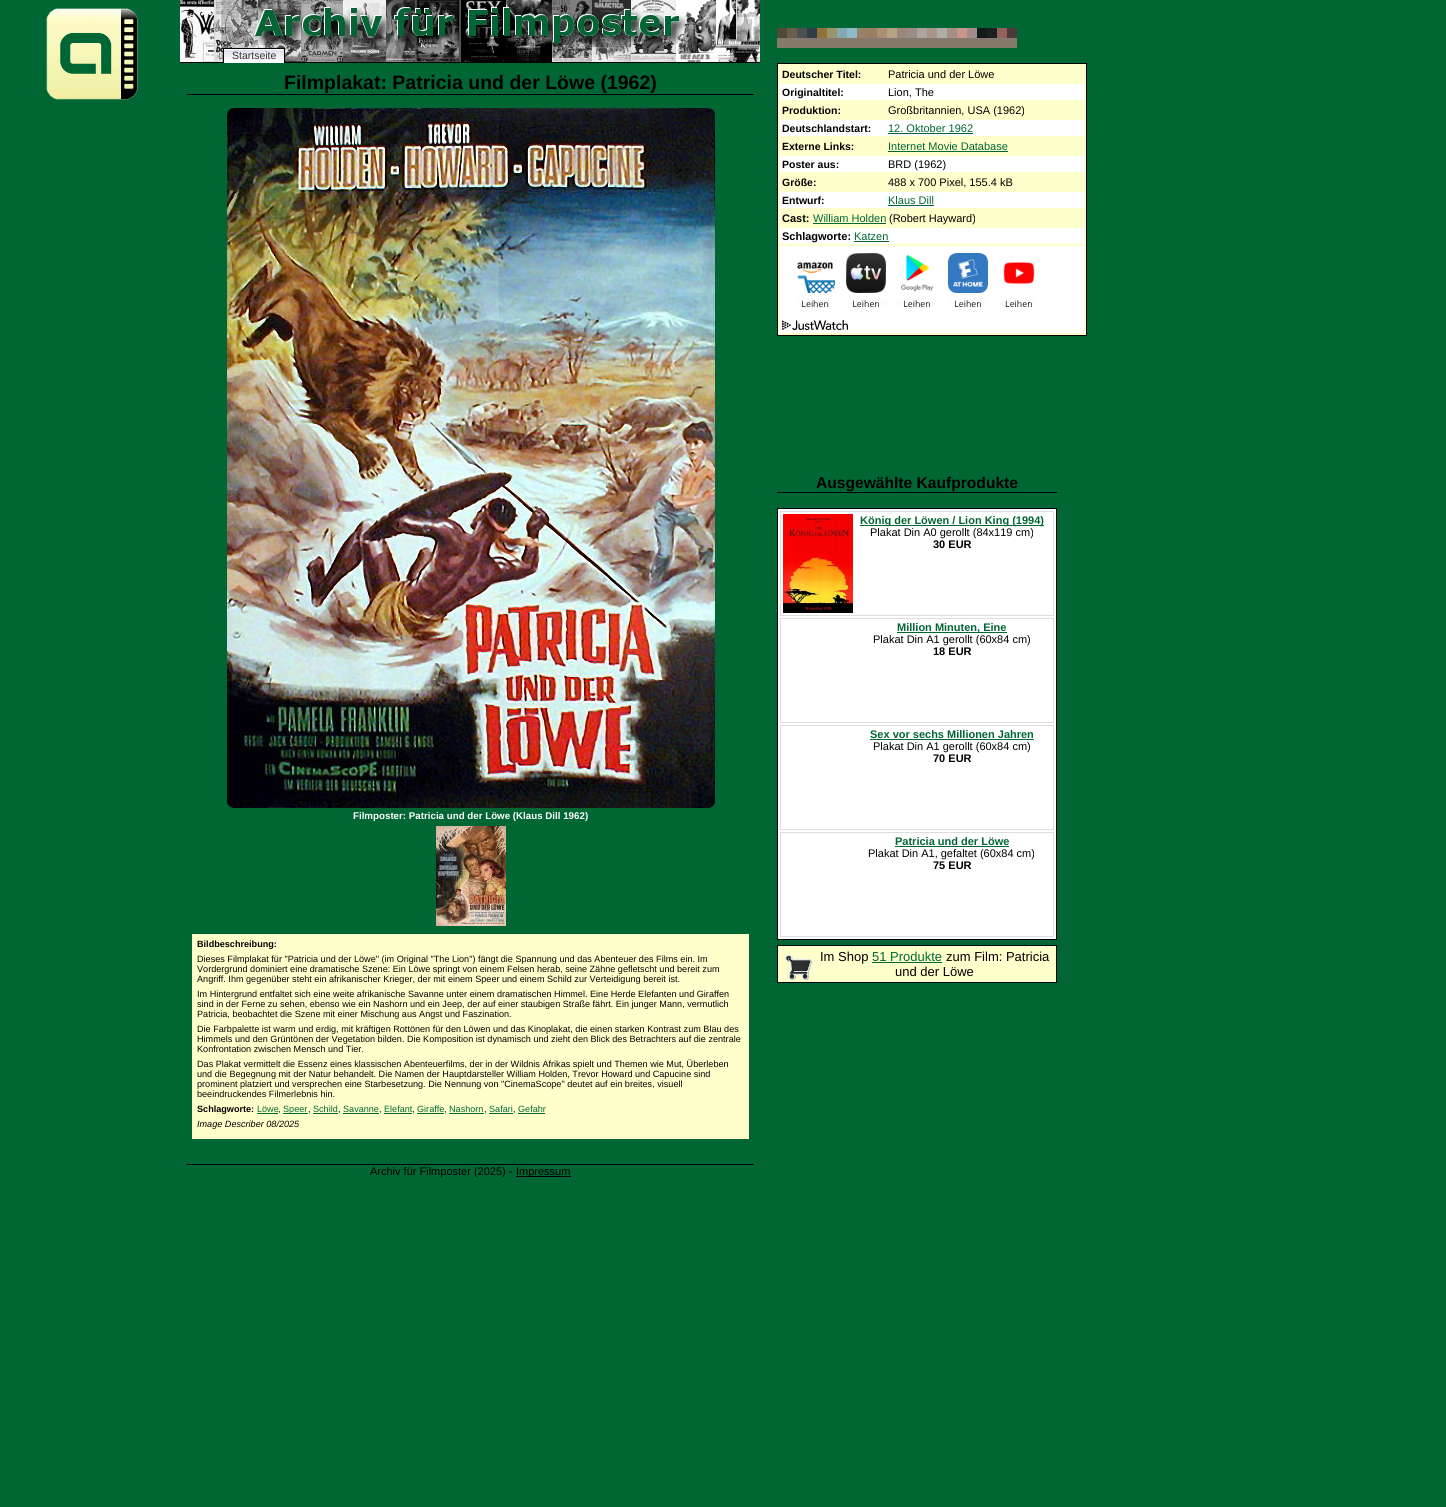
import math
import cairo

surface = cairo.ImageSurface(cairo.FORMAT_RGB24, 1446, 1507)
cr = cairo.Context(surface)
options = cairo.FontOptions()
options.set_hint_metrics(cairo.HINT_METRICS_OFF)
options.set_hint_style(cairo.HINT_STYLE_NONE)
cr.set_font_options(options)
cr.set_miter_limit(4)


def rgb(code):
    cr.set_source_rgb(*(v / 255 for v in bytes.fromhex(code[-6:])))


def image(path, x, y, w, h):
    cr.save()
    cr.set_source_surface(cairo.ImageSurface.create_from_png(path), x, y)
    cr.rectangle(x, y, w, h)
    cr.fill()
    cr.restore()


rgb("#006633")
cr.paint()
image("img/1.png", 46, 8, 92, 92)
image("img/2.png", 777, 28, 240, 20)
rgb("#000000")
cr.rectangle(180, 62, 580, 1)
cr.fill()
image("img/3.png", 180, 0, 580, 62)
rgb("#ffffff")
cr.rectangle(224, 49, 60, 14)
cr.fill()
image("img/4.png", 224, 50, 60, 11)
for x, y, w, h, color in [
    (223, 48, 62, 1, "#000000"),
    (284, 48, 1, 15, "#000000"),
    (223, 48, 1, 15, "#000000"),
    (187, 94, 567, 1, "#000000"),
]:
    rgb(color)
    cr.rectangle(x, y, w, h)
    cr.fill()
rgb("#ffffcc")
cr.rectangle(777.5, 63.5, 309, 272)
cr.fill_preserve()
rgb("#000000")
cr.set_line_width(1)
cr.stroke()
for x, y, w, h, color in [
    (780, 84, 304, 16, "#ffffff"),
    (780, 120, 304, 16, "#ffffff"),
    (888, 133, 85, 1, "#006633"),
    (888, 151, 120, 1, "#006633"),
    (780, 156, 304, 16, "#ffffff"),
    (780, 192, 304, 16, "#ffffff"),
    (888, 205, 46, 1, "#006633"),
    (813, 223, 73, 1, "#006633"),
    (780, 228, 304, 16, "#ffffff"),
    (854, 241, 35, 1, "#006633"),
    (780, 246, 304, 87, "#ffffff"),
]:
    rgb(color)
    cr.rectangle(x, y, w, h)
    cr.fill()
image("img/5.png", 797, 253, 238, 54)
image("img/6.png", 782, 320, 66, 10)
image("img/7.png", 227, 108, 488, 700)
rgb("#000000")
cr.rectangle(777, 492, 280, 1)
cr.fill()
rgb("#ffffff")
cr.rectangle(777.5, 508.5, 279, 431)
cr.fill_preserve()
rgb("#000000")
cr.stroke()
cr.rectangle(780.5, 511.5, 273, 104)
rgb("#dddddd")
cr.stroke()
image("img/8.png", 783, 514, 70, 99)
rgb("#006633")
cr.rectangle(860, 525, 184, 1)
cr.fill()
cr.rectangle(780.5, 618.5, 273, 104)
rgb("#dddddd")
cr.stroke()
rgb("#006633")
cr.rectangle(897, 632, 110, 1)
cr.fill()
cr.rectangle(780.5, 725.5, 273, 104)
rgb("#dddddd")
cr.stroke()
rgb("#006633")
cr.rectangle(870, 739, 164, 1)
cr.fill()
cr.rectangle(780.5, 832.5, 273, 104)
rgb("#dddddd")
cr.stroke()
rgb("#006633")
cr.rectangle(895, 846, 114, 1)
cr.fill()
rgb("#ffffcc")
cr.rectangle(777.5, 945.5, 279, 37)
cr.fill_preserve()
rgb("#000000")
cr.stroke()
image("img/9.png", 785, 955, 27, 25)
rgb("#006633")
cr.rectangle(872, 962, 70, 1)
cr.fill()
image("img/10.png", 436, 826, 70, 100)
for x, y, w, h, color in [
    (192, 934, 557, 205, "#ffffcc"),
    (257, 1113, 21, 1, "#006633"),
    (283, 1113, 25, 1, "#006633"),
    (313, 1113, 25, 1, "#006633"),
    (343, 1113, 36, 1, "#006633"),
    (384, 1113, 28, 1, "#006633"),
    (417, 1113, 27, 1, "#006633"),
    (449, 1113, 35, 1, "#006633"),
    (489, 1113, 24, 1, "#006633"),
    (518, 1113, 27, 1, "#006633"),
    (187, 1164, 567, 1, "#000000"),
    (516, 1176, 55, 1, "#000000"),
]:
    rgb(color)
    cr.rectangle(x, y, w, h)
    cr.fill()
cr.select_font_face("Liberation Sans")
cr.set_font_size(10.5)
rgb("#333333")
cr.move_to(232, 59)
cr.show_text("Startseite")
cr.select_font_face("Liberation Sans", cairo.FONT_SLANT_NORMAL, cairo.FONT_WEIGHT_BOLD)
cr.set_font_size(19.5)
rgb("#000000")
cr.move_to(284, 89)
cr.show_text("Filmplakat: Patricia und der Löwe (1962)")
cr.set_font_size(10.5)
cr.move_to(782, 78)
cr.show_text("Deutscher Titel:")
cr.select_font_face("Liberation Sans")
cr.set_font_size(11)
cr.move_to(888, 78)
cr.show_text("Patricia und der Löwe")
cr.select_font_face("Liberation Sans", cairo.FONT_SLANT_NORMAL, cairo.FONT_WEIGHT_BOLD)
cr.set_font_size(10.5)
cr.move_to(782, 96)
cr.show_text("Originaltitel:")
cr.select_font_face("Liberation Sans")
cr.set_font_size(11)
cr.move_to(888, 96)
cr.show_text("Lion, The")
cr.select_font_face("Liberation Sans", cairo.FONT_SLANT_NORMAL, cairo.FONT_WEIGHT_BOLD)
cr.set_font_size(10.5)
cr.move_to(782, 114)
cr.show_text("Produktion:")
cr.select_font_face("Liberation Sans")
cr.set_font_size(11)
cr.move_to(888, 114)
cr.show_text("Großbritannien, USA (1962)")
cr.select_font_face("Liberation Sans", cairo.FONT_SLANT_NORMAL, cairo.FONT_WEIGHT_BOLD)
cr.set_font_size(10.5)
cr.move_to(782, 132)
cr.show_text("Deutschlandstart:")
cr.select_font_face("Liberation Sans")
cr.set_font_size(11)
rgb("#006633")
cr.move_to(888, 132)
cr.show_text("12. Oktober 1962")
cr.select_font_face("Liberation Sans", cairo.FONT_SLANT_NORMAL, cairo.FONT_WEIGHT_BOLD)
cr.set_font_size(10.5)
rgb("#000000")
cr.move_to(782, 150)
cr.show_text("Externe Links:")
cr.select_font_face("Liberation Sans")
cr.set_font_size(11)
rgb("#006633")
cr.move_to(888, 150)
cr.show_text("Internet Movie Database")
cr.select_font_face("Liberation Sans", cairo.FONT_SLANT_NORMAL, cairo.FONT_WEIGHT_BOLD)
cr.set_font_size(10.5)
rgb("#000000")
cr.move_to(782, 168)
cr.show_text("Poster aus:")
cr.select_font_face("Liberation Sans")
cr.set_font_size(11)
cr.move_to(888, 168)
cr.show_text("BRD (1962)")
cr.select_font_face("Liberation Sans", cairo.FONT_SLANT_NORMAL, cairo.FONT_WEIGHT_BOLD)
cr.set_font_size(10.5)
cr.move_to(782, 186)
cr.show_text("Größe:")
cr.select_font_face("Liberation Sans")
cr.set_font_size(11)
cr.move_to(888, 186)
cr.show_text("488 x 700 Pixel, 155.4 kB")
cr.select_font_face("Liberation Sans", cairo.FONT_SLANT_NORMAL, cairo.FONT_WEIGHT_BOLD)
cr.set_font_size(10.5)
cr.move_to(782, 204)
cr.show_text("Entwurf:")
cr.select_font_face("Liberation Sans")
cr.set_font_size(11)
rgb("#006633")
cr.move_to(888, 204)
cr.show_text("Klaus Dill")
cr.select_font_face("Liberation Sans", cairo.FONT_SLANT_NORMAL, cairo.FONT_WEIGHT_BOLD)
rgb("#000000")
cr.move_to(782, 222)
cr.show_text("Cast:")
cr.select_font_face("Liberation Sans")
rgb("#006633")
cr.move_to(813, 222)
cr.show_text("William Holden")
rgb("#000000")
cr.move_to(889, 222)
cr.show_text("(Robert Hayward)")
cr.select_font_face("Liberation Sans", cairo.FONT_SLANT_NORMAL, cairo.FONT_WEIGHT_BOLD)
cr.move_to(782, 240)
cr.show_text("Schlagworte:")
cr.select_font_face("Liberation Sans")
rgb("#006633")
cr.move_to(854, 240)
cr.show_text("Katzen")
cr.select_font_face("Liberation Sans", cairo.FONT_SLANT_NORMAL, cairo.FONT_WEIGHT_BOLD)
cr.set_font_size(9.75)
rgb("#ffffff")
cr.move_to(353, 819)
cr.show_text("Filmposter: Patricia und der Löwe (Klaus Dill 1962)")
cr.set_font_size(15.6)
rgb("#000000")
cr.move_to(816, 488)
cr.show_text("Ausgewählte Kaufprodukte")
cr.set_font_size(11)
rgb("#006633")
cr.move_to(860, 524)
cr.show_text("König der Löwen / Lion King (1994)")
cr.select_font_face("Liberation Sans")
rgb("#000000")
cr.move_to(870, 536)
cr.show_text("Plakat Din A0 gerollt (84x119 cm)")
cr.select_font_face("Liberation Sans", cairo.FONT_SLANT_NORMAL, cairo.FONT_WEIGHT_BOLD)
cr.move_to(933, 548)
cr.show_text("30 EUR")
rgb("#006633")
cr.move_to(897, 631)
cr.show_text("Million Minuten, Eine")
cr.select_font_face("Liberation Sans")
rgb("#000000")
cr.move_to(873, 643)
cr.show_text("Plakat Din A1 gerollt (60x84 cm)")
cr.select_font_face("Liberation Sans", cairo.FONT_SLANT_NORMAL, cairo.FONT_WEIGHT_BOLD)
cr.move_to(933, 655)
cr.show_text("18 EUR")
rgb("#006633")
cr.move_to(870, 738)
cr.show_text("Sex vor sechs Millionen Jahren")
cr.select_font_face("Liberation Sans")
rgb("#000000")
cr.move_to(873, 750)
cr.show_text("Plakat Din A1 gerollt (60x84 cm)")
cr.select_font_face("Liberation Sans", cairo.FONT_SLANT_NORMAL, cairo.FONT_WEIGHT_BOLD)
cr.move_to(933, 762)
cr.show_text("70 EUR")
rgb("#006633")
cr.move_to(895, 845)
cr.show_text("Patricia und der Löwe")
cr.select_font_face("Liberation Sans")
rgb("#000000")
cr.move_to(868, 857)
cr.show_text("Plakat Din A1, gefaltet (60x84 cm)")
cr.select_font_face("Liberation Sans", cairo.FONT_SLANT_NORMAL, cairo.FONT_WEIGHT_BOLD)
cr.move_to(933, 869)
cr.show_text("75 EUR")
cr.select_font_face("Liberation Sans")
cr.set_font_size(13)
cr.move_to(820, 961)
cr.show_text("Im Shop")
rgb("#006633")
cr.move_to(872, 961)
cr.show_text("51 Produkte")
rgb("#000000")
cr.move_to(946, 961)
cr.show_text("zum Film: Patricia")
cr.move_to(895, 976)
cr.show_text("und der Löwe")
cr.select_font_face("Liberation Sans", cairo.FONT_SLANT_NORMAL, cairo.FONT_WEIGHT_BOLD)
cr.set_font_size(9.1)
cr.move_to(197, 947)
cr.show_text("Bildbeschreibung:")
cr.select_font_face("Liberation Sans")
for x, y, s in [
    (197, 962, "Dieses Filmplakat für \"Patricia und der Löwe\" (im Original \"The Lion\") fängt die Spannung und das Abenteuer des Films ein. Im"),
    (197, 972, "Vordergrund dominiert eine dramatische Szene: Ein Löwe springt von einem Felsen herab, seine Zähne gefletscht und bereit zum"),
    (197, 982, "Angriff. Ihm gegenüber steht ein afrikanischer Krieger, der mit einem Speer und einem Schild zur Verteidigung bereit ist."),
    (197, 997, "Im Hintergrund entfaltet sich eine weite afrikanische Savanne unter einem dramatischen Himmel. Eine Herde Elefanten und Giraffen"),
    (197, 1007, "sind in der Ferne zu sehen, ebenso wie ein Nashorn und ein Jeep, der auf einer staubigen Straße fährt. Ein junger Mann, vermutlich"),
    (197, 1017, "Patricia, beobachtet die Szene mit einer Mischung aus Angst und Faszination."),
    (197, 1032, "Die Farbpalette ist warm und erdig, mit kräftigen Rottönen für den Löwen und das Kinoplakat, die einen starken Kontrast zum Blau des"),
    (197, 1042, "Himmels und den Grüntönen der Vegetation bilden. Die Komposition ist dynamisch und zieht den Blick des Betrachters auf die zentrale"),
    (197, 1052, "Konfrontation zwischen Mensch und Tier."),
    (197, 1067, "Das Plakat vermittelt die Essenz eines klassischen Abenteuerfilms, der in der Wildnis Afrikas spielt und Themen wie Mut, Überleben"),
    (197, 1077, "und die Begegnung mit der Natur behandelt. Die Namen der Hauptdarsteller William Holden, Trevor Howard und Capucine sind"),
    (197, 1087, "prominent platziert und versprechen eine Starbesetzung. Die Nennung von \"CinemaScope\" deutet auf ein breites, visuell"),
    (197, 1097, "beeindruckendes Filmerlebnis hin."),
]:
    cr.move_to(x, y)
    cr.show_text(s)
cr.select_font_face("Liberation Sans", cairo.FONT_SLANT_NORMAL, cairo.FONT_WEIGHT_BOLD)
cr.move_to(197, 1112)
cr.show_text("Schlagworte:")
cr.select_font_face("Liberation Sans")
rgb("#006633")
cr.move_to(257, 1112)
cr.show_text("Löwe")
rgb("#000000")
cr.move_to(278, 1112)
cr.show_text(",")
rgb("#006633")
cr.move_to(283, 1112)
cr.show_text("Speer")
rgb("#000000")
cr.move_to(308, 1112)
cr.show_text(",")
rgb("#006633")
cr.move_to(313, 1112)
cr.show_text("Schild")
rgb("#000000")
cr.move_to(338, 1112)
cr.show_text(",")
rgb("#006633")
cr.move_to(343, 1112)
cr.show_text("Savanne")
rgb("#000000")
cr.move_to(379, 1112)
cr.show_text(",")
rgb("#006633")
cr.move_to(384, 1112)
cr.show_text("Elefant")
rgb("#000000")
cr.move_to(412, 1112)
cr.show_text(",")
rgb("#006633")
cr.move_to(417, 1112)
cr.show_text("Giraffe")
rgb("#000000")
cr.move_to(444, 1112)
cr.show_text(",")
rgb("#006633")
cr.move_to(449, 1112)
cr.show_text("Nashorn")
rgb("#000000")
cr.move_to(484, 1112)
cr.show_text(",")
rgb("#006633")
cr.move_to(489, 1112)
cr.show_text("Safari")
rgb("#000000")
cr.move_to(513, 1112)
cr.show_text(",")
rgb("#006633")
cr.move_to(518, 1112)
cr.show_text("Gefahr")
cr.select_font_face("Liberation Sans", cairo.FONT_SLANT_ITALIC)
rgb("#000000")
cr.move_to(197, 1127)
cr.show_text("Image Describer 08/2025")
cr.select_font_face("Liberation Sans")
cr.set_font_size(11)
cr.move_to(370, 1175)
cr.show_text("Archiv für Filmposter (2025) -")
cr.move_to(516, 1175)
cr.show_text("Impressum")
surface.write_to_png("page.png")
